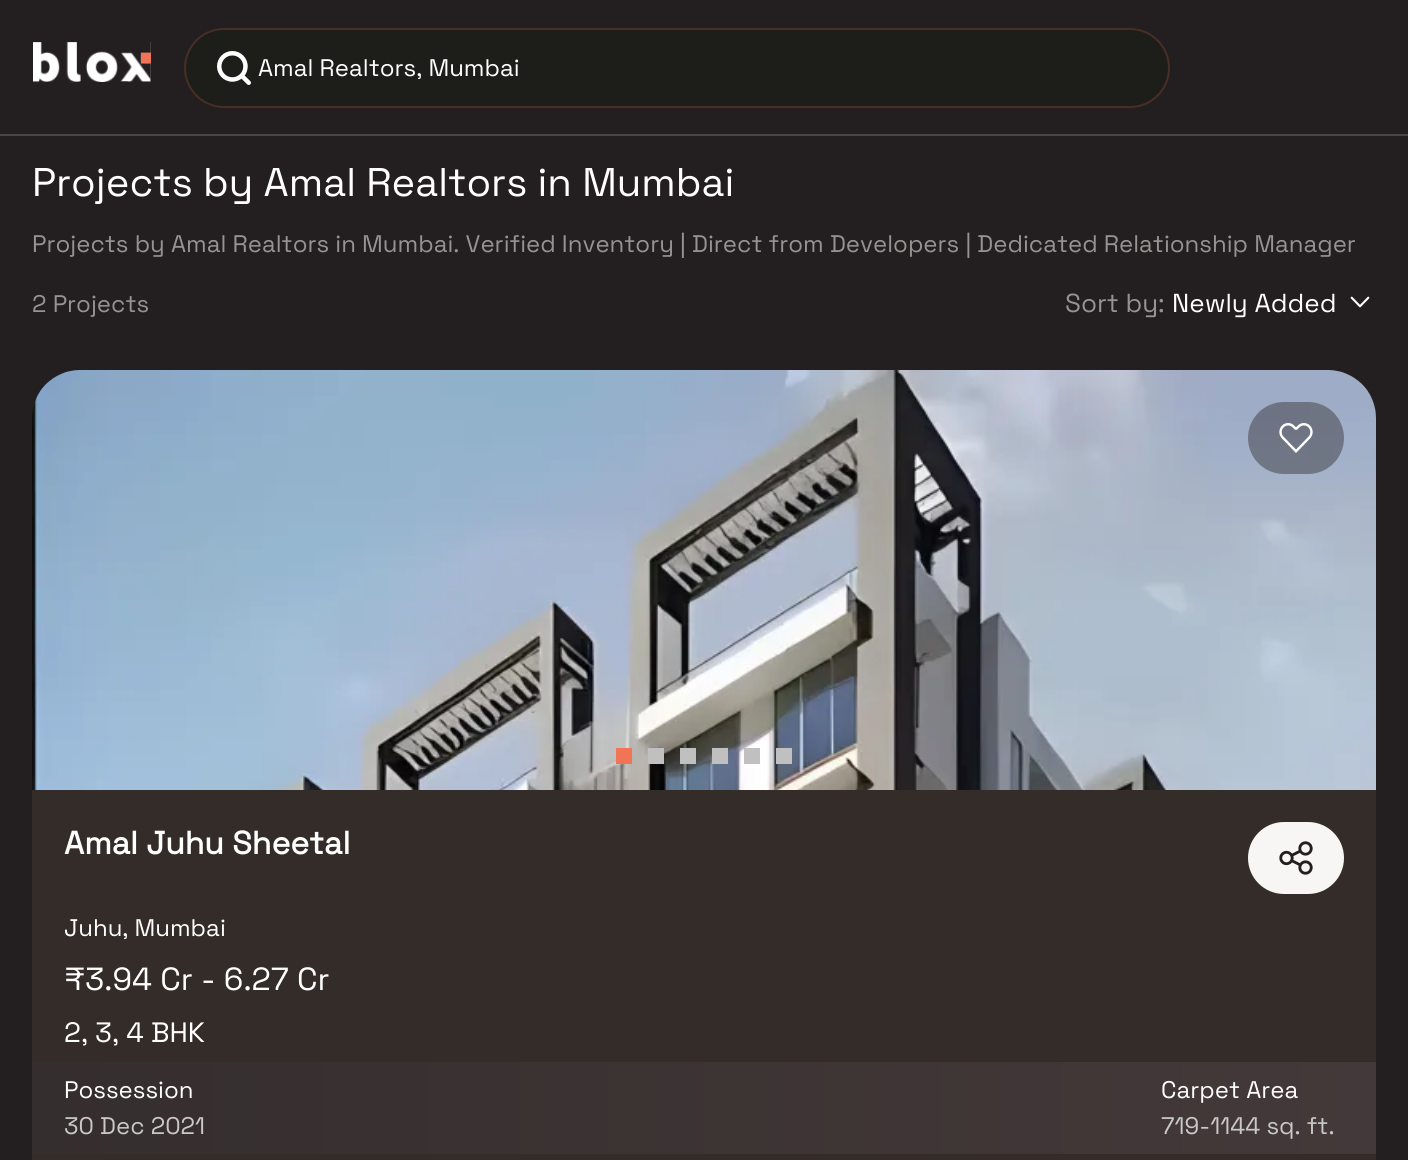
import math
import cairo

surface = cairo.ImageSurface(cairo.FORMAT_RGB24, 1408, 1160)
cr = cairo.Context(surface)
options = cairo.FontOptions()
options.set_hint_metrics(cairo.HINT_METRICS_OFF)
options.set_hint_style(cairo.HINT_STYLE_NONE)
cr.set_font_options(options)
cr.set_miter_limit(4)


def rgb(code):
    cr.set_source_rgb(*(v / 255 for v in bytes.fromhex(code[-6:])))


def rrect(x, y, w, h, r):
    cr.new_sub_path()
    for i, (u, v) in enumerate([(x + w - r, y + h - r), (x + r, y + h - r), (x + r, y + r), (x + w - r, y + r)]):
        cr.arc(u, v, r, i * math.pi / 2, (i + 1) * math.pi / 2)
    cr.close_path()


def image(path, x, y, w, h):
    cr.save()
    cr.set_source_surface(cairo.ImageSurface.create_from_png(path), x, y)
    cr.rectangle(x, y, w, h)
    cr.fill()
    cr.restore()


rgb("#231e1f")
cr.paint()
image("img/1.png", 33, 42, 118, 41)
rgb("#1d1d1a")
rrect(184, 28, 986, 80, 40)
cr.fill()
rrect(185, 29, 984, 78, 39)
cr.set_source_rgba(0.949, 0.455, 0.337, 0.2)
cr.stroke()
image("img/2.png", 217, 51, 34, 34)
rgb("#4b4646")
cr.rectangle(0, 134, 1408, 2)
cr.fill()
image("img/3.png", 1350, 296, 20, 12)
rgb("#332c29")
rrect(32, 370, 1344, 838, 48)
cr.fill()
image("img/4.png", 32, 370, 1344, 420)
for x, y, w, h, color in [
    (616, 748, 16, 16, "#f27456"),
    (648, 748, 16, 16, "#c0c0c0"),
    (680, 748, 16, 16, "#c0c0c0"),
    (712, 748, 16, 16, "#c0c0c0"),
    (744, 748, 16, 16, "#c0c0c0"),
    (776, 748, 16, 16, "#c0c0c0"),
]:
    rgb(color)
    cr.rectangle(x, y, w, h)
    cr.fill()
cr.set_source_rgba(0.137, 0.118, 0.122, 0.4)
rrect(1248, 402, 96, 72, 36)
cr.fill()
image("img/5.png", 1279, 423, 34, 30)
rgb("#f7f6f5")
rrect(1248, 822, 96, 72, 36)
cr.fill()
image("img/6.png", 1279, 841, 34, 34)
gradient = cairo.LinearGradient(32, 1108, 1376, 1108)
gradient.add_color_stop_rgba(0, 0.208, 0.18, 0.18, 1)
gradient.add_color_stop_rgba(1, 0.267, 0.224, 0.227, 1)
cr.set_source(gradient)
cr.rectangle(32, 1062, 1344, 92)
cr.fill()
cr.select_font_face("Space Grotesk Light")
cr.set_font_size(24)
rgb("#ffffff")
cr.move_to(258, 76)
cr.show_text("Amal Realtors, Mumbai")
cr.set_font_size(40)
cr.move_to(32, 196)
cr.show_text("Projects by Amal Realtors in Mumbai")
cr.set_font_size(24)
rgb("#979393")
cr.move_to(32, 252)
cr.show_text("Projects by Amal Realtors in Mumbai. Verified Inventory | Direct from Developers | Dedicated Relationship Manager")
cr.move_to(32, 312)
cr.show_text("2 Projects")
cr.set_font_size(26)
cr.move_to(1065, 312)
cr.show_text("Sort by:")
rgb("#ffffff")
cr.move_to(1172, 312)
cr.show_text("Newly Added")
cr.select_font_face("Space Grotesk", cairo.FONT_SLANT_NORMAL, cairo.FONT_WEIGHT_BOLD)
cr.set_font_size(32)
cr.move_to(64, 854)
cr.show_text("Amal Juhu Sheetal")
cr.select_font_face("Space Grotesk Light")
cr.set_font_size(24)
cr.move_to(64, 936)
cr.show_text("Juhu, Mumbai")
cr.set_font_size(32)
cr.move_to(64, 990)
cr.show_text("₹3.94 Cr - 6.27 Cr")
cr.set_font_size(28)
cr.move_to(64, 1042)
cr.show_text("2, 3, 4 BHK")
cr.set_font_size(24)
cr.move_to(64, 1098)
cr.show_text("Possession")
rgb("#c9c9c9")
cr.move_to(64, 1134)
cr.show_text("30 Dec 2021")
rgb("#ffffff")
cr.move_to(1161, 1098)
cr.show_text("Carpet Area")
rgb("#c9c9c9")
cr.move_to(1161, 1134)
cr.show_text("719-1144 sq. ft.")
surface.write_to_png("page.png")
